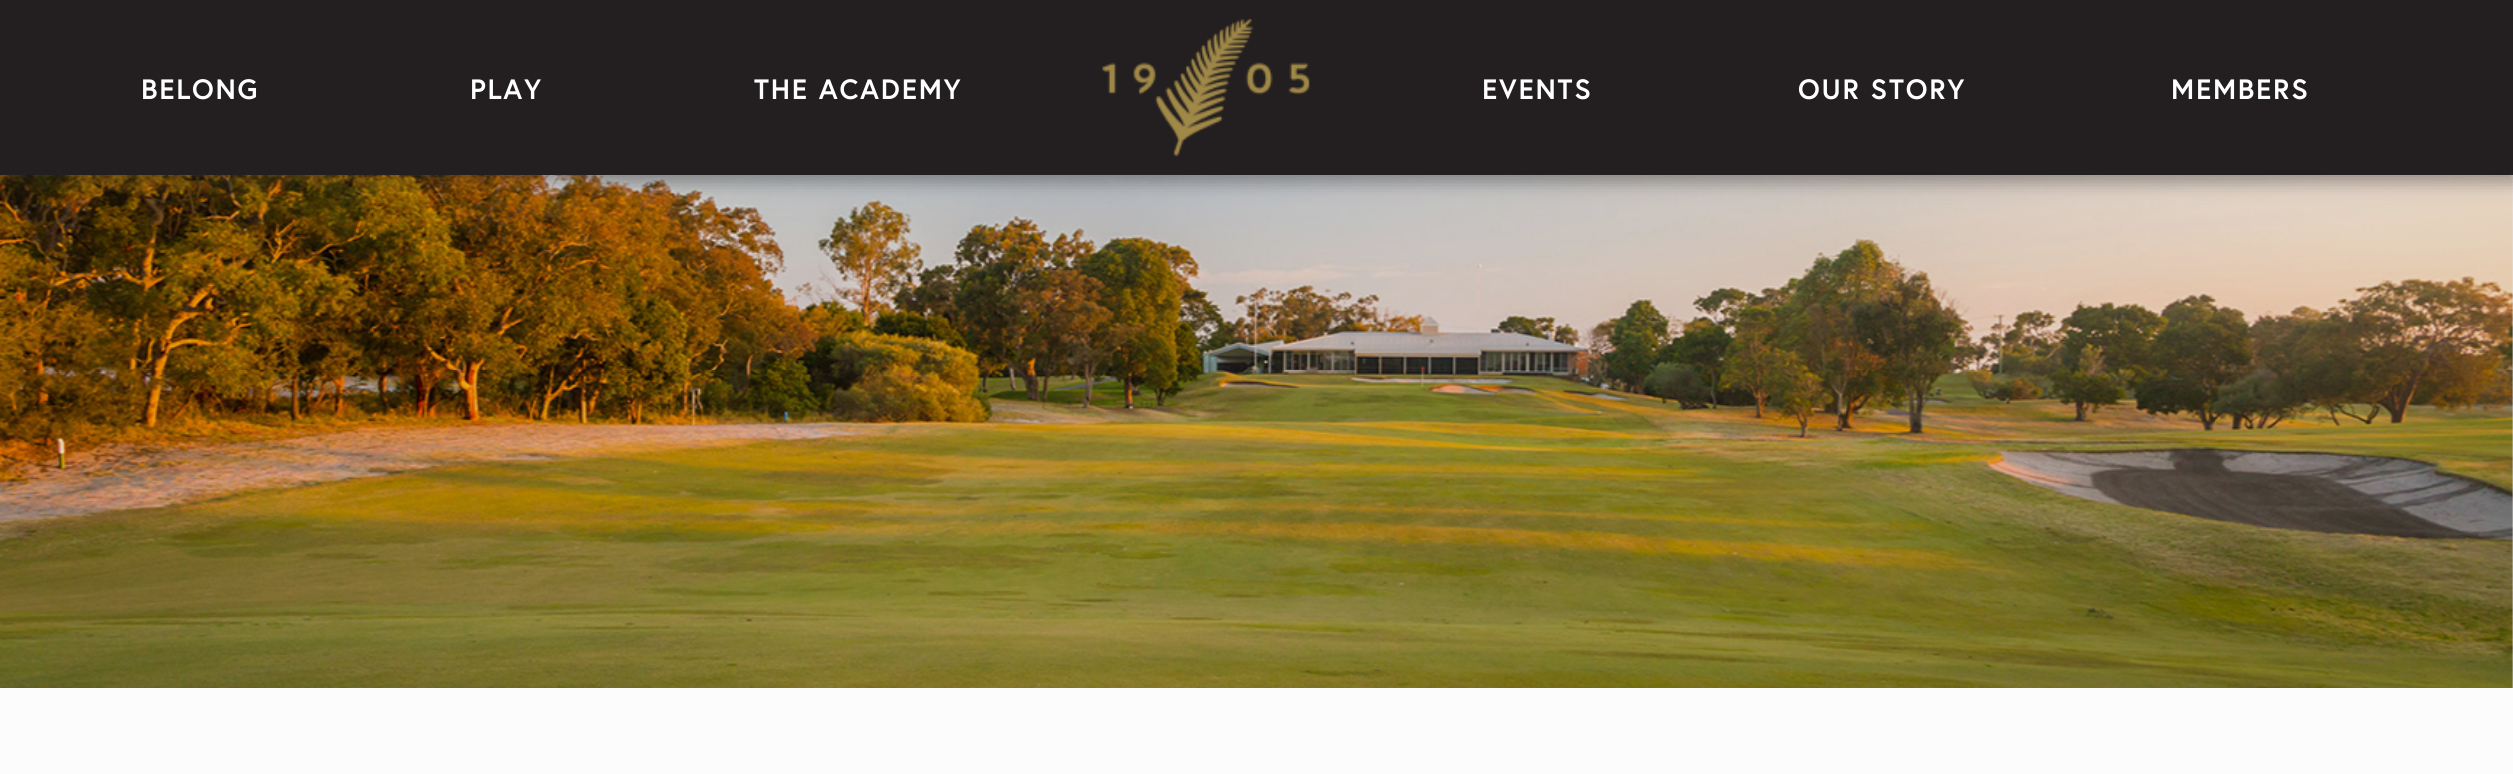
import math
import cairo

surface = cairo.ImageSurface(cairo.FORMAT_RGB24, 2513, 774)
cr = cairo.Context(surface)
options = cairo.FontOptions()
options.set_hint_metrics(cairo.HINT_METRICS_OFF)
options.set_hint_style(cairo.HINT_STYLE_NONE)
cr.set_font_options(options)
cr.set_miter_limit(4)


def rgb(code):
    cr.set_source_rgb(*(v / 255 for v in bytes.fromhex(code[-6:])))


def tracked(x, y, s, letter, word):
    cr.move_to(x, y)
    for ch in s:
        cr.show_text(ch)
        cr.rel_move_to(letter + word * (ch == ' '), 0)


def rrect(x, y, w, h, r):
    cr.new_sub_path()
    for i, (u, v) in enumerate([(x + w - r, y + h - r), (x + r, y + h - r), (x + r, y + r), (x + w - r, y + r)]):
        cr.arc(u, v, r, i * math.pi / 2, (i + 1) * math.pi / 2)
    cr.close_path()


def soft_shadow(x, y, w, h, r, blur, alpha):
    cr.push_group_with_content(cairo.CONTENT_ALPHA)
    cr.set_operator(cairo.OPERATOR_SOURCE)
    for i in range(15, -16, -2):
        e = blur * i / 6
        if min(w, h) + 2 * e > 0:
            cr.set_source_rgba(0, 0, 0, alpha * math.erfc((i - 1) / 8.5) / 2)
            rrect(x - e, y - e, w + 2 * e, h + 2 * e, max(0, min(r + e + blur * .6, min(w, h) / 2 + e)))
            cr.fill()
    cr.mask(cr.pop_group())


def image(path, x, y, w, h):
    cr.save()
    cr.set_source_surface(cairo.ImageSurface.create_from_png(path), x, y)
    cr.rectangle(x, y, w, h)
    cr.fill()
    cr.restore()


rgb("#e6e6e6")
cr.paint()
image("img/2.png", 0, 175, 2513, 513)
rgb("#231f20")
soft_shadow(2, 7, 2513, 175, 0, 9, 0.4)
rgb("#231f20")
cr.rectangle(0, 0, 2513, 175)
cr.fill()
image("img/1.png", 1102, 18, 208, 139)
rgb("#fcfcfc")
cr.rectangle(0, 688, 2513, 86)
cr.fill()
cr.select_font_face("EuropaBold", cairo.FONT_SLANT_NORMAL, cairo.FONT_WEIGHT_BOLD)
cr.set_font_size(28)
rgb("#ffffff")
for x, y, s in [
    (141, 99, "BELONG"),
    (470, 99, "PLAY"),
    (754, 99, "THE ACADEMY"),
    (1482, 99, "EVENTS"),
    (1798, 99, "OUR STORY"),
    (2171, 99, "MEMBERS"),
]:
    tracked(x, y, s, 1.75, 0)
surface.write_to_png("page.png")
